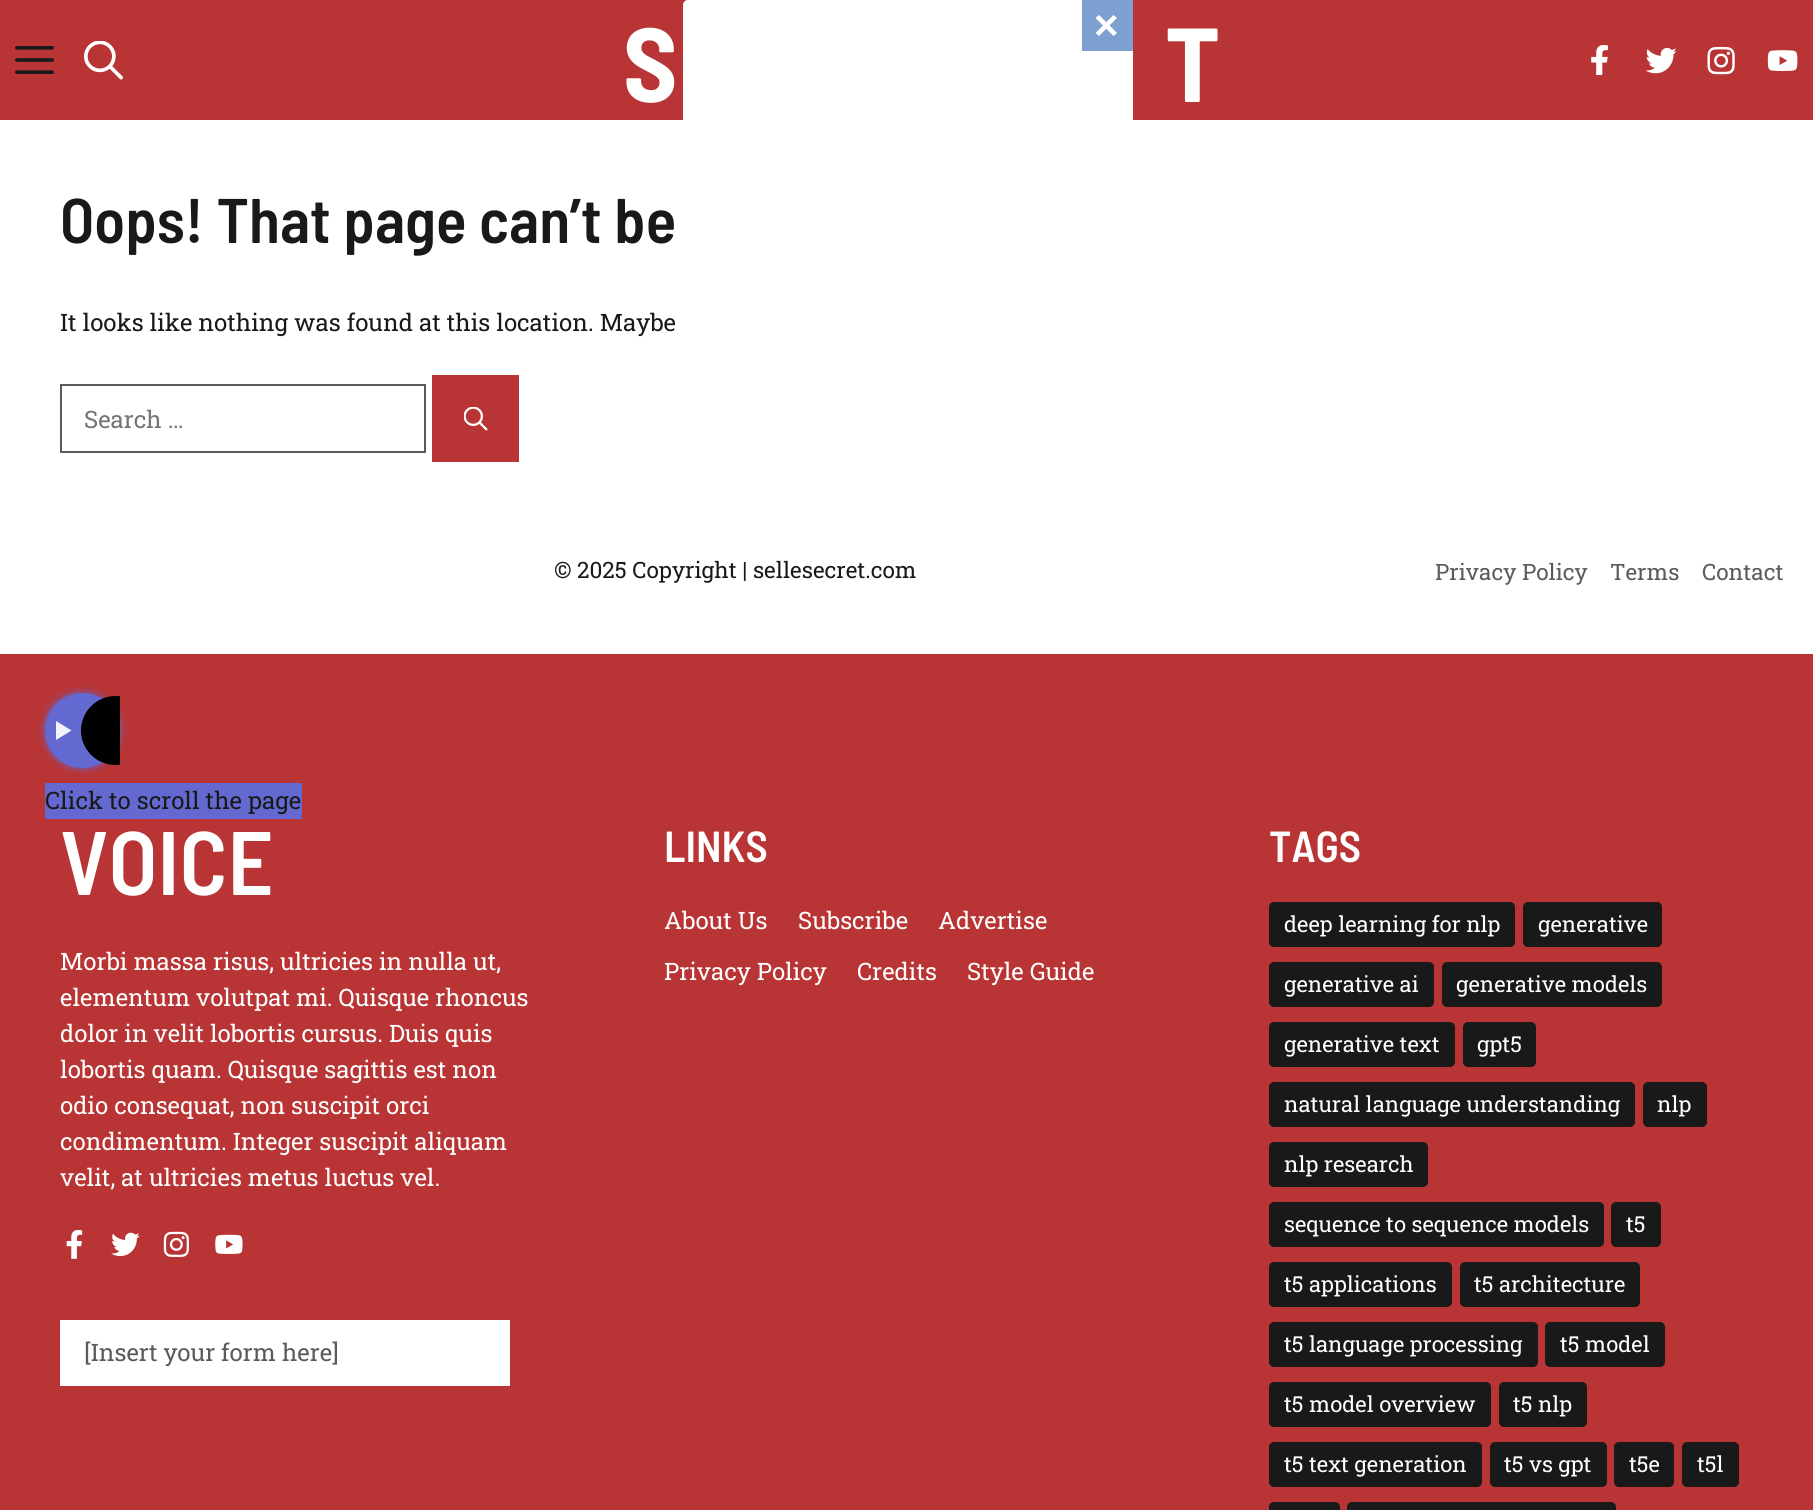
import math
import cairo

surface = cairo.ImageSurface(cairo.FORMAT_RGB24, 1813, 1510)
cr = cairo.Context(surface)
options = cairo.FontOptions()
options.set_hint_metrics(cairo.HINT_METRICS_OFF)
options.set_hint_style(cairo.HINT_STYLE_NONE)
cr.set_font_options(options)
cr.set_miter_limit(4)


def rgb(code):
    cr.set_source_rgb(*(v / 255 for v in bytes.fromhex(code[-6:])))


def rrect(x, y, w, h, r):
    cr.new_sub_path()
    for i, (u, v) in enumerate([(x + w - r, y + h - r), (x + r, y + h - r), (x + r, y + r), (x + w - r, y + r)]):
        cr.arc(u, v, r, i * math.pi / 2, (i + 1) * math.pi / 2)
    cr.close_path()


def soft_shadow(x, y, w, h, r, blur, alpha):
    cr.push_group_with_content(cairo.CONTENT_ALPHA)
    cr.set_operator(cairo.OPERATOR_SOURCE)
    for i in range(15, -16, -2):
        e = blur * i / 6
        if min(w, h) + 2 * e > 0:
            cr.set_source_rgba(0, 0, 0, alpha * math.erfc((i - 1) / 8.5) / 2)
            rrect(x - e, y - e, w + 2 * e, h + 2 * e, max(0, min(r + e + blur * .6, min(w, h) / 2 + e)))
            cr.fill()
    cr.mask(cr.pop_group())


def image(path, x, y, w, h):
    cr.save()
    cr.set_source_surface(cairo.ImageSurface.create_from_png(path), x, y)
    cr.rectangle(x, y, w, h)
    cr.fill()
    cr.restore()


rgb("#ffffff")
cr.paint()
rgb("#b93434")
cr.rectangle(0, 0, 1813, 120)
cr.fill()
rgb("#ffffff")
rrect(683, 0, 450, 375, 5)
cr.fill()
rgb("#7ca1d1")
cr.rectangle(1082, 0, 51, 51)
cr.fill()
rgb("#ffffff")
cr.new_path()
cr.move_to(1095.5, 33)
cr.line_to(1113.5, 15)
cr.line_to(1117, 18)
cr.line_to(1099, 36)
cr.close_path()
cr.fill()
cr.new_path()
cr.move_to(1099, 15)
cr.line_to(1117, 33)
cr.line_to(1113.5, 36)
cr.line_to(1095.5, 18)
cr.close_path()
cr.fill()
image("img/1.png", 15, 46, 39, 28)
image("img/2.png", 84, 41, 39, 39)
image("img/3.png", 1591, 45, 17, 30)
image("img/4.png", 1646, 47, 30, 27)
image("img/5.png", 1707, 46, 28, 29)
image("img/6.png", 1767, 50, 31, 21)
cr.rectangle(61, 385, 364, 67)
rgb("#5b5b5b")
cr.stroke()
rgb("#b93434")
cr.rectangle(432, 375, 87, 87)
cr.fill()
image("img/7.png", 464, 407, 24, 24)
cr.rectangle(0, 654, 1813, 856)
cr.fill()
image("img/8.png", 66, 1230, 17, 29)
image("img/9.png", 111, 1232, 29, 25)
image("img/10.png", 163, 1231, 26, 26)
image("img/11.png", 215, 1234, 28, 20)
rgb("#ffffff")
cr.rectangle(60, 1320, 450, 66)
cr.fill()
rgb("#191919")
rrect(1269, 902, 246, 45, 5)
cr.fill()
rrect(1523, 902, 139, 45, 5)
cr.fill()
rrect(1269, 962, 165, 45, 5)
cr.fill()
rrect(1442, 962, 220, 45, 5)
cr.fill()
rrect(1269, 1022, 186, 45, 5)
cr.fill()
rrect(1463, 1022, 73, 45, 5)
cr.fill()
rrect(1269, 1082, 366, 45, 5)
cr.fill()
rrect(1643, 1082, 64, 45, 5)
cr.fill()
rrect(1269, 1142, 159, 45, 5)
cr.fill()
rrect(1269, 1202, 335, 45, 5)
cr.fill()
rrect(1611, 1202, 50, 45, 5)
cr.fill()
rrect(1269, 1262, 183, 45, 5)
cr.fill()
rrect(1460, 1262, 180, 45, 5)
cr.fill()
rrect(1269, 1322, 269, 45, 5)
cr.fill()
rrect(1545, 1322, 120, 45, 5)
cr.fill()
rrect(1269, 1382, 222, 45, 5)
cr.fill()
rrect(1499, 1382, 88, 45, 5)
cr.fill()
rrect(1269, 1442, 213, 45, 5)
cr.fill()
rrect(1490, 1442, 117, 45, 5)
cr.fill()
rrect(1614, 1442, 60, 45, 5)
cr.fill()
rrect(1682, 1442, 57, 45, 5)
cr.fill()
rrect(1269, 1502, 71, 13, 5)
cr.fill()
rrect(1347, 1502, 269, 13, 5)
cr.fill()
rgb("#6369d1")
soft_shadow(45, 693, 75, 75, 37.5, 4, 1)
rgb("#6369d1")
cr.arc(82.5, 730.5, 37.5, 0, 2 * math.pi)
cr.fill()
rgb("#f2f3fa")
cr.new_path()
cr.move_to(56, 721)
cr.line_to(56, 740)
cr.line_to(71.5, 730.5)
cr.close_path()
cr.fill()
cr.save()
cr.rectangle(78, 693, 42, 75)
cr.clip()
rgb("#000000")
cr.arc(115.5, 730.5, 34.5, 0, 2 * math.pi)
cr.fill()
cr.restore()
rgb("#6369d1")
cr.rectangle(45, 783, 257, 36)
cr.fill()
cr.select_font_face("Barlow Semi Condensed", cairo.FONT_SLANT_NORMAL, cairo.FONT_WEIGHT_BOLD)
cr.set_font_size(105)
rgb("#ffffff")
cr.move_to(623, 102)
cr.show_text("S")
cr.move_to(1165, 102)
cr.show_text("T")
cr.select_font_face("Barlow Semi Condensed SemiBold")
cr.set_font_size(63)
rgb("#191919")
cr.move_to(60, 243)
cr.show_text("Oops! That page can’t be")
cr.select_font_face("Roboto Slab")
cr.set_font_size(24)
cr.move_to(60, 331)
cr.show_text("It looks like nothing was found at this location. Maybe")
rgb("#757575")
cr.move_to(84, 428)
cr.show_text("Search …")
cr.set_font_size(22.5)
rgb("#191919")
cr.move_to(554, 578)
cr.show_text("© 2025 Copyright | sellesecret.com")
rgb("#5b5b5b")
for x, y, s in [
    (1435, 580, "Privacy Policy"),
    (1610, 580, "Terms"),
    (1702, 580, "Contact"),
]:
    cr.move_to(x, y)
    cr.show_text(s)
cr.select_font_face("Barlow Semi Condensed SemiBold")
cr.set_font_size(90)
rgb("#ffffff")
cr.move_to(60, 895)
cr.show_text("VOICE")
cr.select_font_face("Roboto Slab")
cr.set_font_size(24)
for x, y, s in [
    (60, 970, "Morbi massa risus, ultricies in nulla ut,"),
    (60, 1006, "elementum volutpat mi. Quisque rhoncus"),
    (60, 1042, "dolor in velit lobortis cursus. Duis quis"),
    (60, 1078, "lobortis quam. Quisque sagittis est non"),
    (60, 1114, "odio consequat, non suscipit orci"),
    (60, 1150, "condimentum. Integer suscipit aliquam"),
    (60, 1186, "velit, at ultricies metus luctus vel."),
]:
    cr.move_to(x, y)
    cr.show_text(s)
rgb("#5b5b5b")
cr.move_to(84, 1361)
cr.show_text("[Insert your form here]")
cr.select_font_face("Barlow Semi Condensed SemiBold")
cr.set_font_size(43.5)
rgb("#ffffff")
cr.move_to(664, 862)
cr.show_text("LINKS")
cr.select_font_face("Roboto Slab")
cr.set_font_size(24)
for x, y, s in [
    (664, 929, "About Us"),
    (798, 929, "Subscribe"),
    (938, 929, "Advertise"),
    (664, 980, "Privacy Policy"),
    (857, 980, "Credits"),
    (967, 980, "Style Guide"),
]:
    cr.move_to(x, y)
    cr.show_text(s)
cr.select_font_face("Barlow Semi Condensed SemiBold")
cr.set_font_size(43.5)
cr.move_to(1269, 862)
cr.show_text("TAGS")
cr.select_font_face("Roboto Slab")
cr.set_font_size(22)
for x, y, s in [
    (1284, 932, "deep learning for nlp"),
    (1538, 932, "generative"),
    (1284, 992, "generative ai"),
    (1456, 992, "generative models"),
    (1284, 1052, "generative text"),
    (1477, 1052, "gpt5"),
    (1284, 1112, "natural language understanding"),
    (1657, 1112, "nlp"),
    (1284, 1172, "nlp research"),
    (1284, 1232, "sequence to sequence models"),
    (1626, 1232, "t5"),
    (1284, 1292, "t5 applications"),
    (1474, 1292, "t5 architecture"),
    (1284, 1352, "t5 language processing"),
    (1560, 1352, "t5 model"),
    (1284, 1412, "t5 model overview"),
    (1513, 1412, "t5 nlp"),
    (1284, 1472, "t5 text generation"),
    (1504, 1472, "t5 vs gpt"),
    (1629, 1472, "t5e"),
    (1697, 1472, "t5l"),
]:
    cr.move_to(x, y)
    cr.show_text(s)
cr.set_font_size(24)
rgb("#191919")
cr.move_to(45, 809)
cr.show_text("Click to scroll the page")
surface.write_to_png("page.png")
